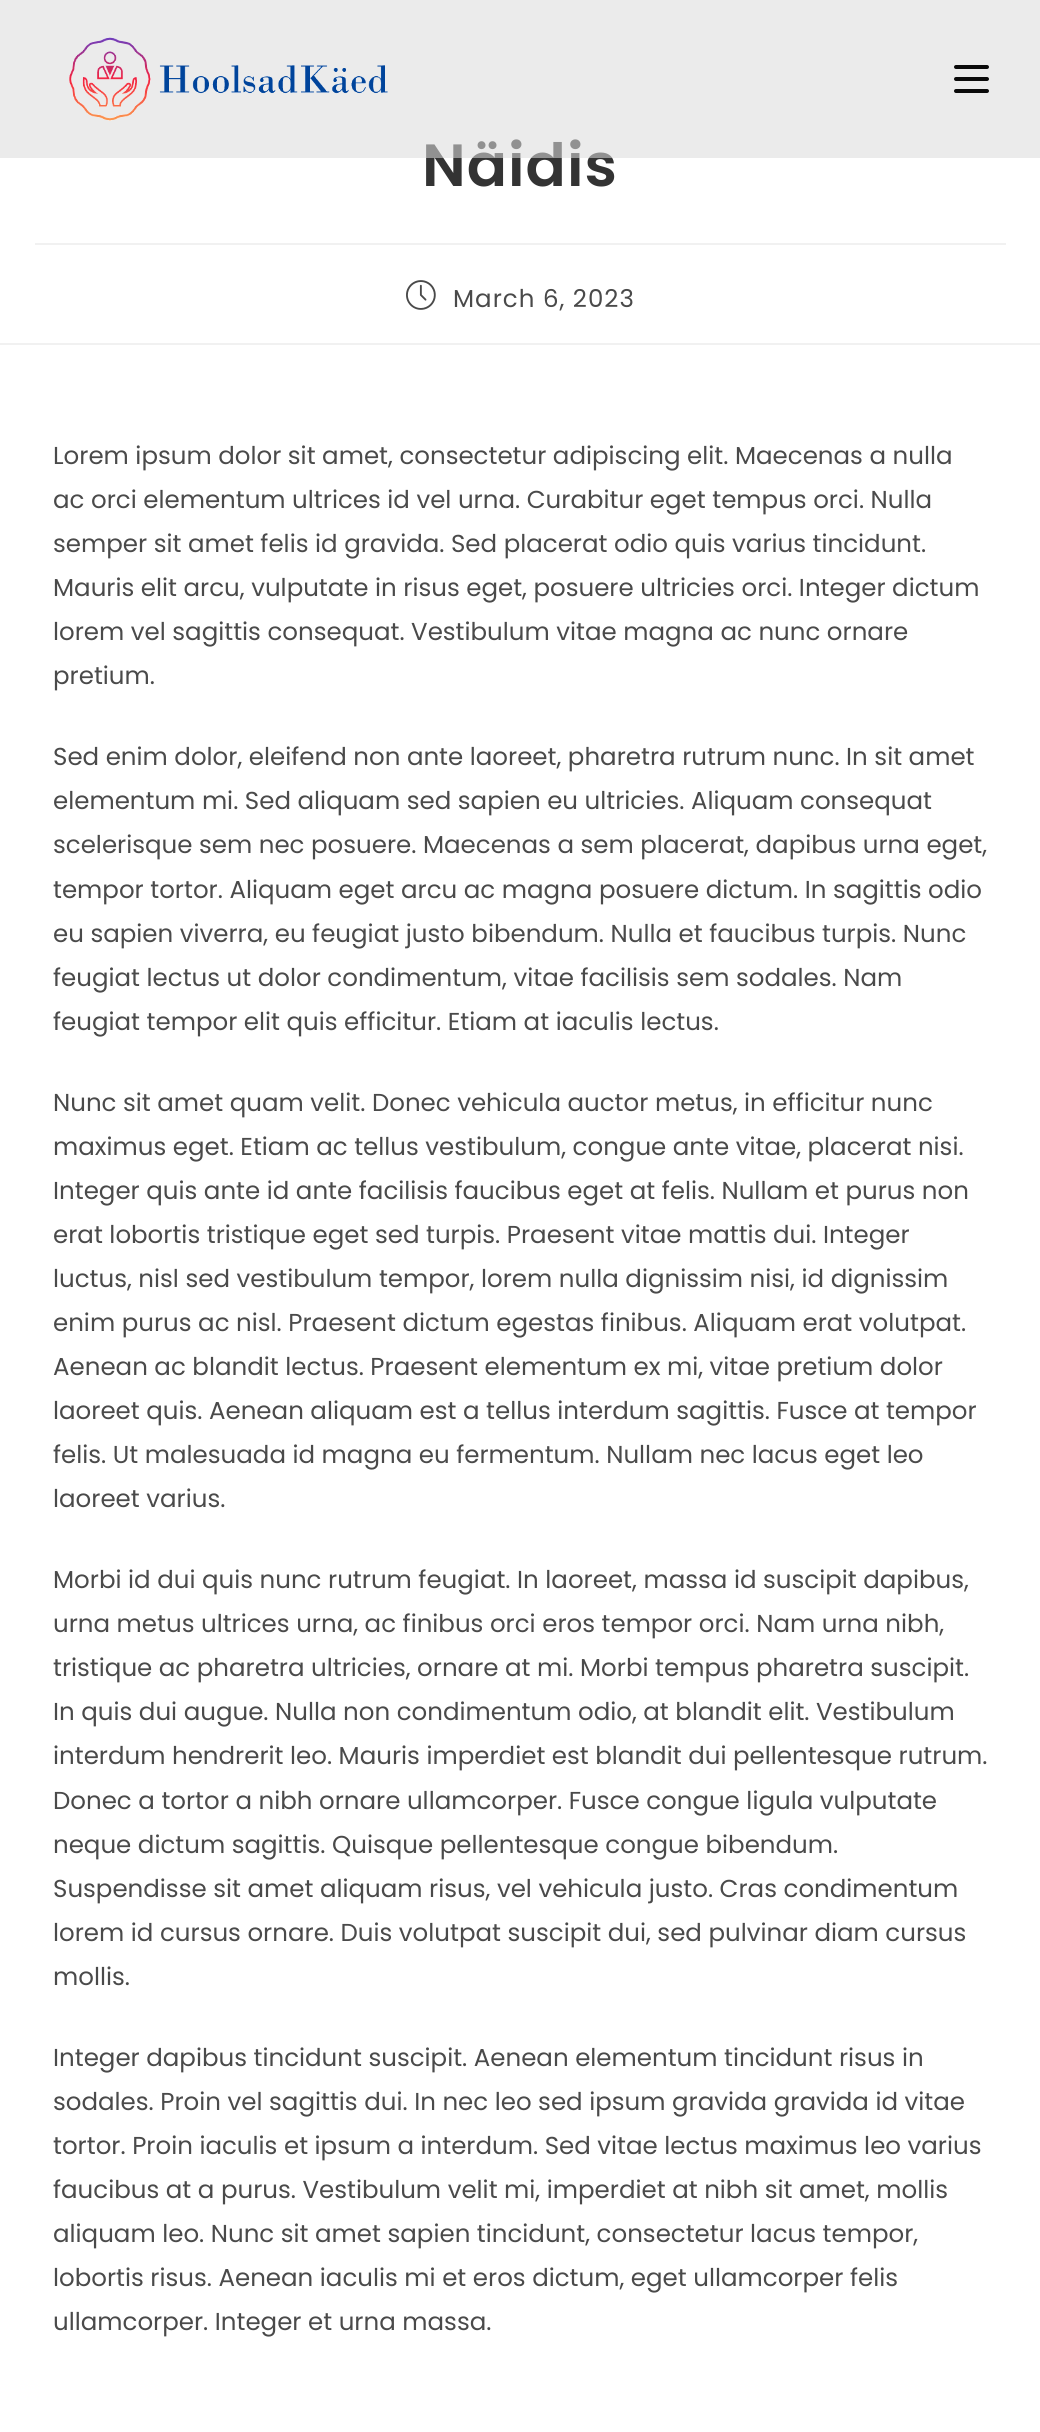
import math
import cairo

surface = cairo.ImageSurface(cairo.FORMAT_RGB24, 1040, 2432)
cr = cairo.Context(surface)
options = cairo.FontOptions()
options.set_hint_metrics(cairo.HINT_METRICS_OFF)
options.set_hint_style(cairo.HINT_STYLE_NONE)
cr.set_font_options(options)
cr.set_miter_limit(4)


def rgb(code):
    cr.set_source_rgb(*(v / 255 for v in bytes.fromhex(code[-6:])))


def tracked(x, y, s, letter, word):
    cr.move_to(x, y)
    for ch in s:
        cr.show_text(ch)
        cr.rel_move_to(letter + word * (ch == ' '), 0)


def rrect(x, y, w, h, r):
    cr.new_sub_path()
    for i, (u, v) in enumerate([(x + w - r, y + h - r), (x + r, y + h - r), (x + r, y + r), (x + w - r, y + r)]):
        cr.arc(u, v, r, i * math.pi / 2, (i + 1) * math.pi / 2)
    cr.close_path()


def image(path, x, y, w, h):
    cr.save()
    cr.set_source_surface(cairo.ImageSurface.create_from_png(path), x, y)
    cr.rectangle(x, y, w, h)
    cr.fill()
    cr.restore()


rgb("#ffffff")
cr.paint()
rgb("#f1f1f1")
cr.rectangle(35, 243, 971, 2)
cr.fill()
cr.rectangle(0, 343, 1040, 2)
cr.fill()
image("img/2.png", 406, 280, 30, 30)
cr.select_font_face("Poppins SemiBold")
cr.set_font_size(59.5)
rgb("#333333")
tracked(422, 186, "Näidis", 1, 0)
cr.set_source_rgba(0.859, 0.859, 0.859, 0.56)
cr.rectangle(0, 0, 1040, 158)
cr.fill()
rgb("#0a0a0a")
rrect(954, 89, 35, 4, 2)
cr.fill()
rrect(954, 65, 35, 4, 2)
cr.fill()
rrect(954, 77, 35, 4, 2)
cr.fill()
image("img/1.png", 69, 37, 319, 84)
cr.select_font_face("Poppins")
cr.set_font_size(24.5)
rgb("#4a4a4a")
tracked(453, 307, "March 6, 2023", 1, 0)
for x, y, s in [
    (53, 464, "Lorem ipsum dolor sit amet, consectetur adipiscing elit. Maecenas a nulla"),
    (53, 508, "ac orci elementum ultrices id vel urna. Curabitur eget tempus orci. Nulla"),
    (53, 552, "semper sit amet felis id gravida. Sed placerat odio quis varius tincidunt."),
    (53, 596, "Mauris elit arcu, vulputate in risus eget, posuere ultricies orci. Integer dictum"),
    (53, 640, "lorem vel sagittis consequat. Vestibulum vitae magna ac nunc ornare"),
    (53, 684, "pretium."),
    (53, 765, "Sed enim dolor, eleifend non ante laoreet, pharetra rutrum nunc. In sit amet"),
    (53, 809, "elementum mi. Sed aliquam sed sapien eu ultricies. Aliquam consequat"),
    (53, 853, "scelerisque sem nec posuere. Maecenas a sem placerat, dapibus urna eget,"),
    (53, 898, "tempor tortor. Aliquam eget arcu ac magna posuere dictum. In sagittis odio"),
    (53, 942, "eu sapien viverra, eu feugiat justo bibendum. Nulla et faucibus turpis. Nunc"),
    (53, 986, "feugiat lectus ut dolor condimentum, vitae facilisis sem sodales. Nam"),
    (53, 1030, "feugiat tempor elit quis efficitur. Etiam at iaculis lectus."),
    (53, 1111, "Nunc sit amet quam velit. Donec vehicula auctor metus, in efficitur nunc"),
    (53, 1155, "maximus eget. Etiam ac tellus vestibulum, congue ante vitae, placerat nisi."),
    (53, 1199, "Integer quis ante id ante facilisis faucibus eget at felis. Nullam et purus non"),
    (53, 1243, "erat lobortis tristique eget sed turpis. Praesent vitae mattis dui. Integer"),
    (53, 1287, "luctus, nisl sed vestibulum tempor, lorem nulla dignissim nisi, id dignissim"),
    (53, 1331, "enim purus ac nisl. Praesent dictum egestas finibus. Aliquam erat volutpat."),
    (53, 1375, "Aenean ac blandit lectus. Praesent elementum ex mi, vitae pretium dolor"),
    (53, 1419, "laoreet quis. Aenean aliquam est a tellus interdum sagittis. Fusce at tempor"),
    (53, 1463, "felis. Ut malesuada id magna eu fermentum. Nullam nec lacus eget leo"),
    (53, 1507, "laoreet varius."),
    (53, 1588, "Morbi id dui quis nunc rutrum feugiat. In laoreet, massa id suscipit dapibus,"),
    (53, 1632, "urna metus ultrices urna, ac finibus orci eros tempor orci. Nam urna nibh,"),
    (53, 1676, "tristique ac pharetra ultricies, ornare at mi. Morbi tempus pharetra suscipit."),
    (53, 1720, "In quis dui augue. Nulla non condimentum odio, at blandit elit. Vestibulum"),
    (53, 1764, "interdum hendrerit leo. Mauris imperdiet est blandit dui pellentesque rutrum."),
    (53, 1809, "Donec a tortor a nibh ornare ullamcorper. Fusce congue ligula vulputate"),
    (53, 1853, "neque dictum sagittis. Quisque pellentesque congue bibendum."),
    (53, 1897, "Suspendisse sit amet aliquam risus, vel vehicula justo. Cras condimentum"),
    (53, 1941, "lorem id cursus ornare. Duis volutpat suscipit dui, sed pulvinar diam cursus"),
    (53, 1985, "mollis."),
    (53, 2066, "Integer dapibus tincidunt suscipit. Aenean elementum tincidunt risus in"),
    (53, 2110, "sodales. Proin vel sagittis dui. In nec leo sed ipsum gravida gravida id vitae"),
    (53, 2154, "tortor. Proin iaculis et ipsum a interdum. Sed vitae lectus maximus leo varius"),
    (53, 2198, "faucibus at a purus. Vestibulum velit mi, imperdiet at nibh sit amet, mollis"),
    (53, 2242, "aliquam leo. Nunc sit amet sapien tincidunt, consectetur lacus tempor,"),
    (53, 2286, "lobortis risus. Aenean iaculis mi et eros dictum, eget ullamcorper felis"),
    (53, 2330, "ullamcorper. Integer et urna massa."),
]:
    cr.move_to(x, y)
    cr.show_text(s)
surface.write_to_png("page.png")
